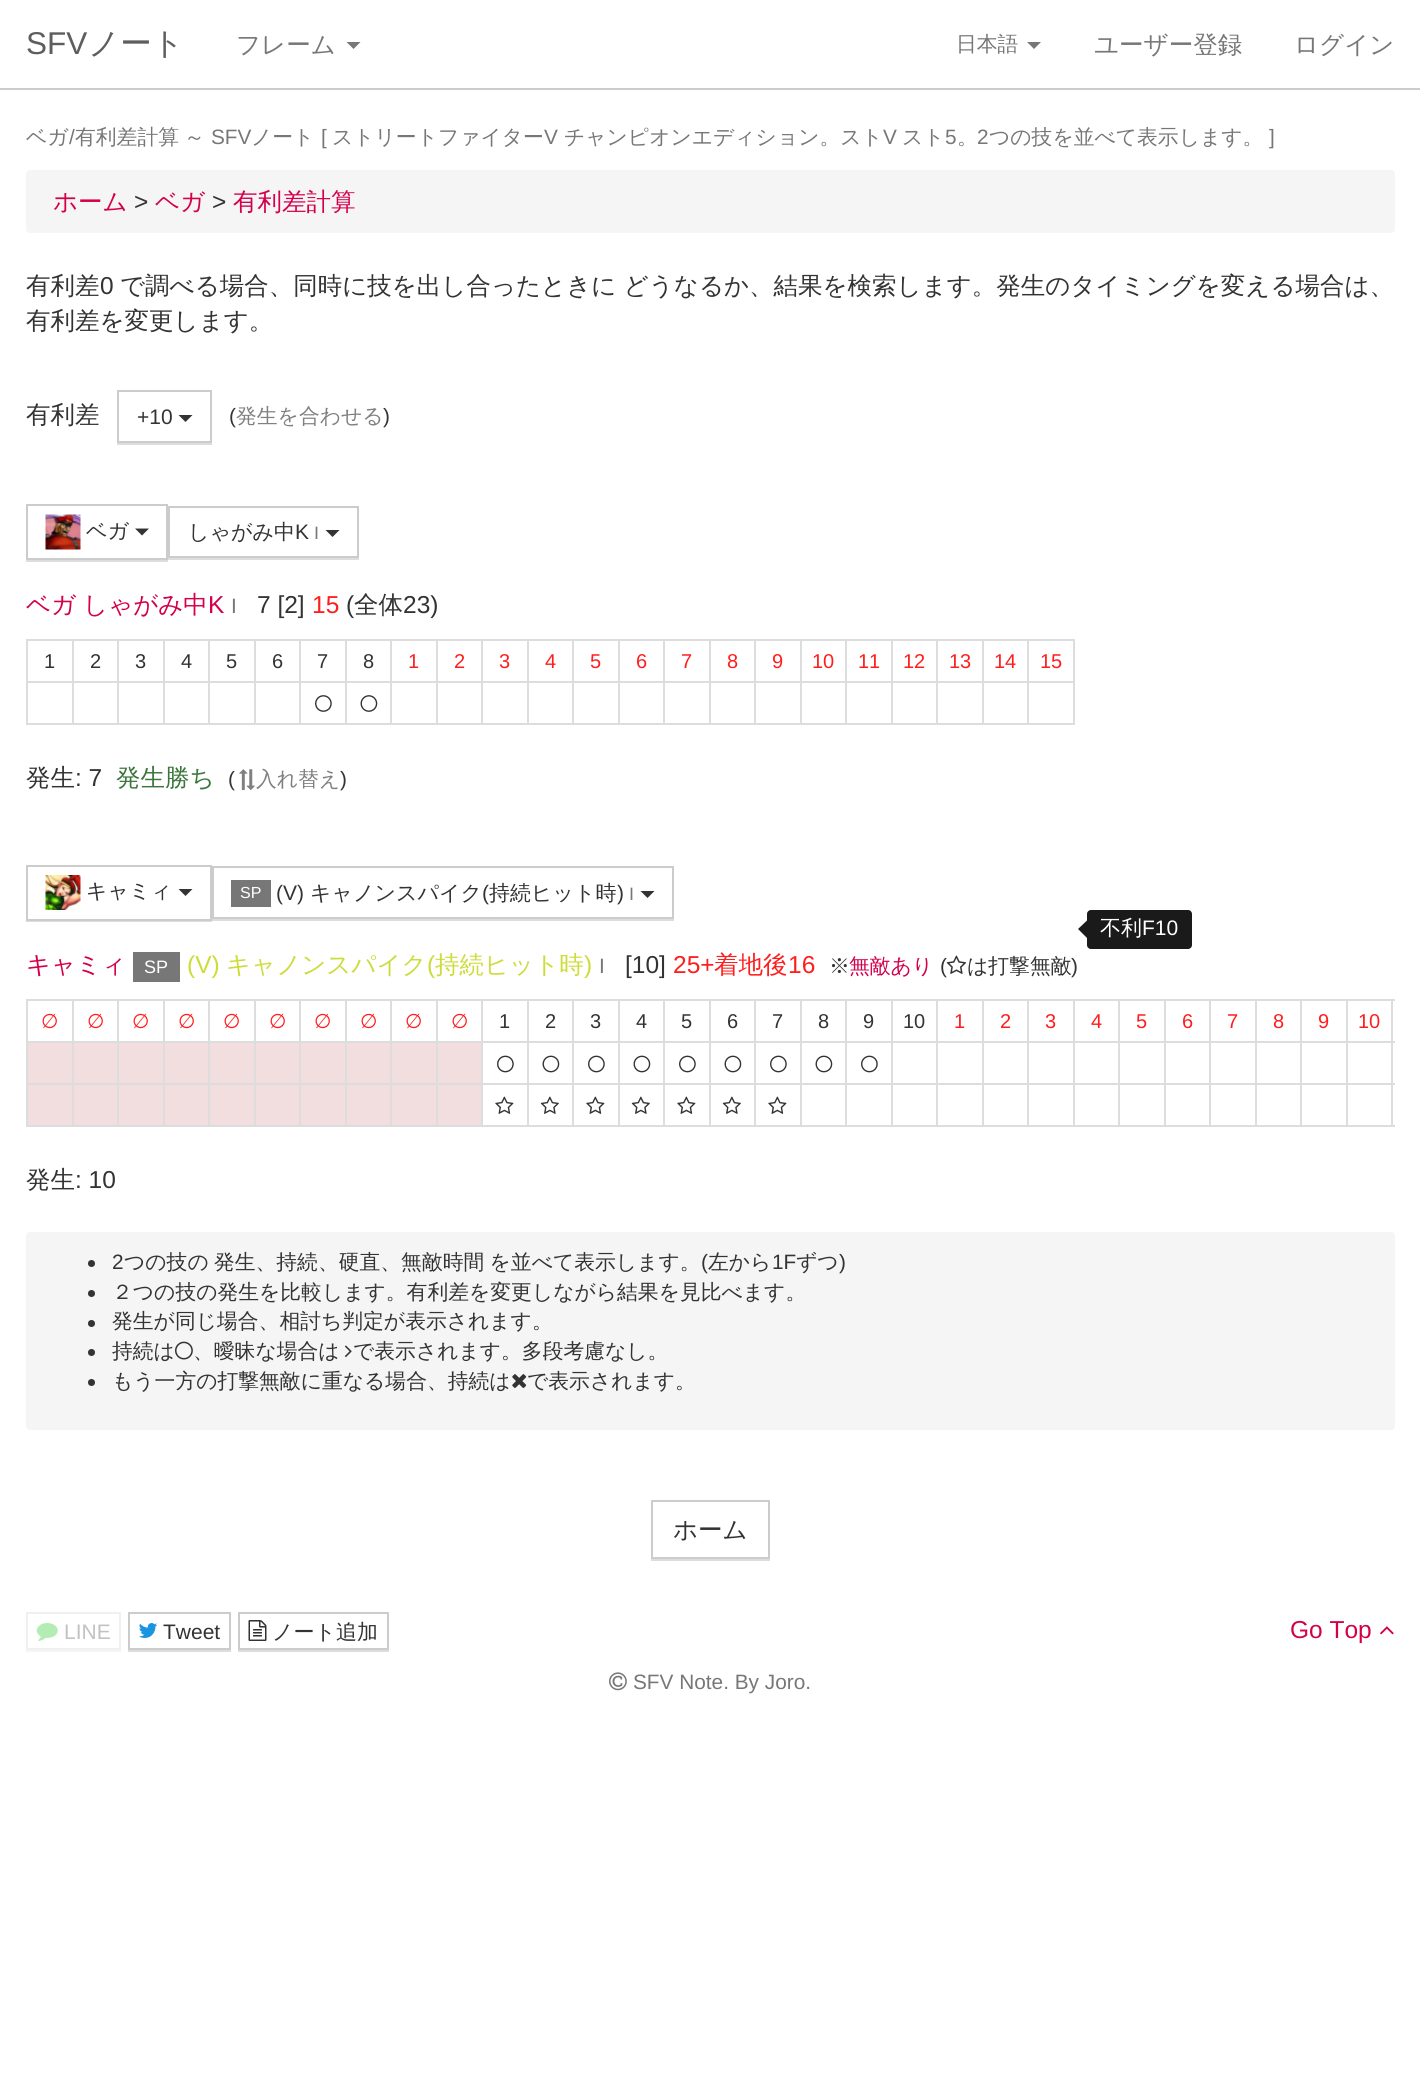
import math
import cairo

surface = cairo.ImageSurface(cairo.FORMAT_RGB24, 1420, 2083)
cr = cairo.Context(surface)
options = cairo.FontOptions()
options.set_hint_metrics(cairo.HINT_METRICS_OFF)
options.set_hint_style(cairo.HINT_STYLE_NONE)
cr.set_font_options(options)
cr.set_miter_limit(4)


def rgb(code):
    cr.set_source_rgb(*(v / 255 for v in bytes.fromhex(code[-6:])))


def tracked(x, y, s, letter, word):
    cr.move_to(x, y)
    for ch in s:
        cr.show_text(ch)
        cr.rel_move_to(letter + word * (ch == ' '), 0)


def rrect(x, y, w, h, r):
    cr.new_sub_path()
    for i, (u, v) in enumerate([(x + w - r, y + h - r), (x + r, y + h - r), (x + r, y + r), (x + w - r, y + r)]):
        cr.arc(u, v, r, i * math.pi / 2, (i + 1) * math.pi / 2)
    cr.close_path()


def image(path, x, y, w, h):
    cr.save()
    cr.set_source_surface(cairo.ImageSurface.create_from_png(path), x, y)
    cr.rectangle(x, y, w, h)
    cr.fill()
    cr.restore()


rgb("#ffffff")
cr.paint()
rgb("#cccccc")
cr.rectangle(0, 88, 1420, 2)
cr.fill()
rgb("#777777")
cr.new_path()
cr.move_to(346.5, 42)
cr.line_to(360.5, 42)
cr.line_to(353.5, 49)
cr.close_path()
cr.fill()
cr.new_path()
cr.move_to(1027, 42)
cr.line_to(1041, 42)
cr.line_to(1034, 49)
cr.close_path()
cr.fill()
rgb("#f5f5f5")
rrect(26, 170, 1369, 63, 4)
cr.fill()
rgb("#dddddd")
cr.new_path()
cr.move_to(117, 392)
cr.line_to(117, 445)
cr.line_to(212, 445)
cr.line_to(212, 392)
cr.line_to(212, 443)
cr.line_to(117, 443)
cr.close_path()
cr.fill()
cr.rectangle(118, 391, 93, 51)
rgb("#cccccc")
cr.stroke()
rgb("#333333")
cr.new_path()
cr.move_to(178.5, 415)
cr.line_to(192.5, 415)
cr.line_to(185.5, 422)
cr.close_path()
cr.fill()
rgb("#dddddd")
cr.new_path()
cr.move_to(26, 506)
cr.line_to(26, 562)
cr.line_to(168, 562)
cr.line_to(168, 560)
cr.line_to(26, 560)
cr.close_path()
cr.fill()
cr.rectangle(27, 505, 140, 54)
rgb("#cccccc")
cr.stroke()
image("img/1.png", 45, 514, 36, 36)
rgb("#333333")
cr.new_path()
cr.move_to(135, 528.5)
cr.line_to(149, 528.5)
cr.line_to(142, 535.5)
cr.close_path()
cr.fill()
rgb("#dddddd")
cr.new_path()
cr.move_to(168, 558)
cr.line_to(168, 560)
cr.line_to(359, 560)
cr.line_to(359, 508)
cr.line_to(359, 558)
cr.close_path()
cr.fill()
cr.rectangle(169, 507, 189, 50)
rgb("#cccccc")
cr.stroke()
rgb("#333333")
cr.new_path()
cr.move_to(325.5, 530)
cr.line_to(339.5, 530)
cr.line_to(332.5, 537)
cr.close_path()
cr.fill()
for x, y, w, h, color in [
    (26, 639, 1049, 2, "#dddddd"),
    (1073, 639, 2, 86, "#dddddd"),
    (26, 723, 1049, 2, "#dddddd"),
    (26, 639, 2, 86, "#dddddd"),
    (1027, 681, 48, 2, "#dddddd"),
    (1027, 681, 2, 44, "#dddddd"),
    (982, 681, 47, 2, "#dddddd"),
    (982, 681, 2, 44, "#dddddd"),
    (936, 681, 48, 2, "#dddddd"),
    (936, 681, 2, 44, "#dddddd"),
    (891, 681, 47, 2, "#dddddd"),
    (891, 681, 2, 44, "#dddddd"),
    (845, 681, 48, 2, "#dddddd"),
    (845, 681, 2, 44, "#dddddd"),
    (800, 681, 47, 2, "#dddddd"),
    (800, 681, 2, 44, "#dddddd"),
    (754, 681, 48, 2, "#dddddd"),
    (754, 681, 2, 44, "#dddddd"),
    (709, 681, 47, 2, "#dddddd"),
    (709, 681, 2, 44, "#dddddd"),
    (663, 681, 48, 2, "#dddddd"),
    (663, 681, 2, 44, "#dddddd"),
    (618, 681, 47, 2, "#dddddd"),
    (618, 681, 2, 44, "#dddddd"),
    (572, 681, 48, 2, "#dddddd"),
    (572, 681, 2, 44, "#dddddd"),
    (527, 681, 47, 2, "#dddddd"),
    (527, 681, 2, 44, "#dddddd"),
    (481, 681, 48, 2, "#dddddd"),
    (481, 681, 2, 44, "#dddddd"),
    (436, 681, 47, 2, "#dddddd"),
    (436, 681, 2, 44, "#dddddd"),
    (390, 681, 48, 2, "#dddddd"),
    (390, 681, 2, 44, "#dddddd"),
    (345, 681, 47, 2, "#dddddd"),
    (345, 681, 2, 44, "#dddddd"),
    (299, 681, 48, 2, "#dddddd"),
    (299, 681, 2, 44, "#dddddd"),
    (254, 681, 47, 2, "#dddddd"),
    (254, 681, 2, 44, "#dddddd"),
    (208, 681, 48, 2, "#dddddd"),
    (208, 681, 2, 44, "#dddddd"),
    (163, 681, 47, 2, "#dddddd"),
    (163, 681, 2, 44, "#dddddd"),
    (117, 681, 48, 2, "#dddddd"),
    (117, 681, 2, 44, "#dddddd"),
    (72, 681, 47, 2, "#dddddd"),
    (72, 681, 2, 44, "#dddddd"),
    (26, 681, 48, 2, "#dddddd"),
    (72, 639, 2, 44, "#dddddd"),
    (117, 639, 2, 44, "#dddddd"),
    (163, 639, 2, 44, "#dddddd"),
    (208, 639, 2, 44, "#dddddd"),
    (254, 639, 2, 44, "#dddddd"),
    (299, 639, 2, 44, "#dddddd"),
    (345, 639, 2, 44, "#dddddd"),
    (390, 639, 2, 44, "#dddddd"),
    (436, 639, 2, 44, "#dddddd"),
    (481, 639, 2, 44, "#dddddd"),
    (527, 639, 2, 44, "#dddddd"),
    (572, 639, 2, 44, "#dddddd"),
    (618, 639, 2, 44, "#dddddd"),
    (663, 639, 2, 44, "#dddddd"),
    (709, 639, 2, 44, "#dddddd"),
    (754, 639, 2, 44, "#dddddd"),
    (800, 639, 2, 44, "#dddddd"),
    (845, 639, 2, 44, "#dddddd"),
    (891, 639, 2, 44, "#dddddd"),
    (936, 639, 2, 44, "#dddddd"),
    (982, 639, 2, 44, "#dddddd"),
    (1027, 639, 2, 44, "#dddddd"),
]:
    rgb(color)
    cr.rectangle(x, y, w, h)
    cr.fill()
image("img/2.png", 315, 695, 17, 17)
image("img/3.png", 360, 695, 18, 17)
image("img/4.png", 239, 769, 16, 22)
cr.new_path()
cr.move_to(26, 866)
cr.line_to(26, 922)
cr.line_to(212, 922)
cr.line_to(212, 866)
cr.line_to(212, 920)
cr.line_to(26, 920)
cr.close_path()
cr.fill()
cr.rectangle(27, 866, 184, 54)
rgb("#cccccc")
cr.stroke()
image("img/5.png", 45, 875, 36, 35)
rgb("#333333")
cr.new_path()
cr.move_to(178.5, 889)
cr.line_to(192.5, 889)
cr.line_to(185.5, 896)
cr.close_path()
cr.fill()
rgb("#dddddd")
cr.new_path()
cr.move_to(212, 919)
cr.line_to(212, 921)
cr.line_to(674, 921)
cr.line_to(674, 868)
cr.line_to(674, 919)
cr.close_path()
cr.fill()
cr.rectangle(213, 867, 460, 51)
rgb("#cccccc")
cr.stroke()
rgb("#777777")
cr.rectangle(231, 880, 40, 27)
cr.fill()
rgb("#333333")
cr.new_path()
cr.move_to(640.5, 891)
cr.line_to(654.5, 891)
cr.line_to(647.5, 898)
cr.close_path()
cr.fill()
rgb("#1a1a1a")
cr.new_path()
cr.move_to(1087, 920.5)
cr.line_to(1087, 938)
cr.line_to(1078, 929)
cr.close_path()
cr.fill()
rrect(1087, 910, 105, 39, 4)
cr.fill()
for x, y, w, h, color in [
    (133, 952, 47, 30, "#777777"),
    (26, 999, 1369, 2, "#dddddd"),
    (26, 1125, 1369, 2, "#dddddd"),
    (26, 999, 2, 128, "#dddddd"),
    (1391, 1041, 4, 2, "#dddddd"),
    (1391, 1083, 4, 2, "#dddddd"),
    (1391, 1083, 2, 44, "#dddddd"),
    (1346, 1083, 47, 2, "#dddddd"),
    (1391, 1041, 2, 44, "#dddddd"),
    (1346, 1041, 47, 2, "#dddddd"),
    (1346, 1083, 2, 44, "#dddddd"),
    (1300, 1083, 48, 2, "#dddddd"),
    (1346, 1041, 2, 44, "#dddddd"),
    (1300, 1041, 48, 2, "#dddddd"),
    (1300, 1083, 2, 44, "#dddddd"),
    (1255, 1083, 47, 2, "#dddddd"),
    (1300, 1041, 2, 44, "#dddddd"),
    (1255, 1041, 47, 2, "#dddddd"),
    (1255, 1083, 2, 44, "#dddddd"),
    (1209, 1083, 48, 2, "#dddddd"),
    (1255, 1041, 2, 44, "#dddddd"),
    (1209, 1041, 48, 2, "#dddddd"),
    (1209, 1083, 2, 44, "#dddddd"),
    (1164, 1083, 47, 2, "#dddddd"),
    (1209, 1041, 2, 44, "#dddddd"),
    (1164, 1041, 47, 2, "#dddddd"),
    (1164, 1083, 2, 44, "#dddddd"),
    (1118, 1083, 48, 2, "#dddddd"),
    (1164, 1041, 2, 44, "#dddddd"),
    (1118, 1041, 48, 2, "#dddddd"),
    (1118, 1083, 2, 44, "#dddddd"),
    (1073, 1083, 47, 2, "#dddddd"),
    (1118, 1041, 2, 44, "#dddddd"),
    (1073, 1041, 47, 2, "#dddddd"),
    (1073, 1083, 2, 44, "#dddddd"),
    (1027, 1083, 48, 2, "#dddddd"),
    (1073, 1041, 2, 44, "#dddddd"),
    (1027, 1041, 48, 2, "#dddddd"),
    (1027, 1083, 2, 44, "#dddddd"),
    (982, 1083, 47, 2, "#dddddd"),
    (1027, 1041, 2, 44, "#dddddd"),
    (982, 1041, 47, 2, "#dddddd"),
    (982, 1083, 2, 44, "#dddddd"),
    (936, 1083, 48, 2, "#dddddd"),
    (982, 1041, 2, 44, "#dddddd"),
    (936, 1041, 48, 2, "#dddddd"),
    (936, 1083, 2, 44, "#dddddd"),
    (891, 1083, 47, 2, "#dddddd"),
    (936, 1041, 2, 44, "#dddddd"),
    (891, 1041, 47, 2, "#dddddd"),
    (891, 1083, 2, 44, "#dddddd"),
    (845, 1083, 48, 2, "#dddddd"),
    (891, 1041, 2, 44, "#dddddd"),
    (845, 1041, 48, 2, "#dddddd"),
    (845, 1083, 2, 44, "#dddddd"),
    (800, 1083, 47, 2, "#dddddd"),
    (845, 1041, 2, 44, "#dddddd"),
    (800, 1041, 47, 2, "#dddddd"),
    (800, 1083, 2, 44, "#dddddd"),
    (754, 1083, 48, 2, "#dddddd"),
    (800, 1041, 2, 44, "#dddddd"),
    (754, 1041, 48, 2, "#dddddd"),
    (754, 1083, 2, 44, "#dddddd"),
    (709, 1083, 47, 2, "#dddddd"),
    (754, 1041, 2, 44, "#dddddd"),
    (709, 1041, 47, 2, "#dddddd"),
    (709, 1083, 2, 44, "#dddddd"),
    (663, 1083, 48, 2, "#dddddd"),
    (709, 1041, 2, 44, "#dddddd"),
    (663, 1041, 48, 2, "#dddddd"),
    (663, 1083, 2, 44, "#dddddd"),
    (618, 1083, 47, 2, "#dddddd"),
    (663, 1041, 2, 44, "#dddddd"),
    (618, 1041, 47, 2, "#dddddd"),
    (618, 1083, 2, 44, "#dddddd"),
    (572, 1083, 48, 2, "#dddddd"),
    (618, 1041, 2, 44, "#dddddd"),
    (572, 1041, 48, 2, "#dddddd"),
    (572, 1083, 2, 44, "#dddddd"),
    (527, 1083, 47, 2, "#dddddd"),
    (572, 1041, 2, 44, "#dddddd"),
    (527, 1041, 47, 2, "#dddddd"),
    (527, 1083, 2, 44, "#dddddd"),
    (481, 1083, 48, 2, "#dddddd"),
    (527, 1041, 2, 44, "#dddddd"),
    (481, 1041, 48, 2, "#dddddd"),
    (481, 1083, 2, 44, "#dddddd"),
    (436, 1083, 47, 2, "#dddddd"),
    (481, 1041, 2, 44, "#dddddd"),
    (436, 1041, 47, 2, "#dddddd"),
    (436, 1083, 2, 44, "#dddddd"),
    (390, 1083, 48, 2, "#dddddd"),
    (436, 1041, 2, 44, "#dddddd"),
    (390, 1041, 48, 2, "#dddddd"),
    (390, 1083, 2, 44, "#dddddd"),
    (345, 1083, 47, 2, "#dddddd"),
    (390, 1041, 2, 44, "#dddddd"),
    (345, 1041, 47, 2, "#dddddd"),
    (345, 1083, 2, 44, "#dddddd"),
    (299, 1083, 48, 2, "#dddddd"),
    (345, 1041, 2, 44, "#dddddd"),
    (299, 1041, 48, 2, "#dddddd"),
    (299, 1083, 2, 44, "#dddddd"),
    (254, 1083, 47, 2, "#dddddd"),
    (299, 1041, 2, 44, "#dddddd"),
    (254, 1041, 47, 2, "#dddddd"),
    (254, 1083, 2, 44, "#dddddd"),
    (208, 1083, 48, 2, "#dddddd"),
    (254, 1041, 2, 44, "#dddddd"),
    (208, 1041, 48, 2, "#dddddd"),
    (208, 1083, 2, 44, "#dddddd"),
    (163, 1083, 47, 2, "#dddddd"),
    (208, 1041, 2, 44, "#dddddd"),
    (163, 1041, 47, 2, "#dddddd"),
    (163, 1083, 2, 44, "#dddddd"),
    (117, 1083, 48, 2, "#dddddd"),
    (163, 1041, 2, 44, "#dddddd"),
    (117, 1041, 48, 2, "#dddddd"),
    (117, 1083, 2, 44, "#dddddd"),
    (72, 1083, 47, 2, "#dddddd"),
    (117, 1041, 2, 44, "#dddddd"),
    (72, 1041, 47, 2, "#dddddd"),
    (72, 1083, 2, 44, "#dddddd"),
    (26, 1083, 48, 2, "#dddddd"),
    (72, 1041, 2, 44, "#dddddd"),
    (26, 1041, 48, 2, "#dddddd"),
    (72, 999, 2, 44, "#dddddd"),
    (117, 999, 2, 44, "#dddddd"),
    (163, 999, 2, 44, "#dddddd"),
    (208, 999, 2, 44, "#dddddd"),
    (254, 999, 2, 44, "#dddddd"),
    (299, 999, 2, 44, "#dddddd"),
    (345, 999, 2, 44, "#dddddd"),
    (390, 999, 2, 44, "#dddddd"),
    (436, 999, 2, 44, "#dddddd"),
    (481, 999, 2, 44, "#dddddd"),
    (527, 999, 2, 44, "#dddddd"),
    (572, 999, 2, 44, "#dddddd"),
    (618, 999, 2, 44, "#dddddd"),
    (663, 999, 2, 44, "#dddddd"),
    (709, 999, 2, 44, "#dddddd"),
    (754, 999, 2, 44, "#dddddd"),
    (800, 999, 2, 44, "#dddddd"),
    (845, 999, 2, 44, "#dddddd"),
    (891, 999, 2, 44, "#dddddd"),
    (936, 999, 2, 44, "#dddddd"),
    (982, 999, 2, 44, "#dddddd"),
    (1027, 999, 2, 44, "#dddddd"),
    (1073, 999, 2, 44, "#dddddd"),
    (1118, 999, 2, 44, "#dddddd"),
    (1164, 999, 2, 44, "#dddddd"),
    (1209, 999, 2, 44, "#dddddd"),
    (1255, 999, 2, 44, "#dddddd"),
    (1300, 999, 2, 44, "#dddddd"),
    (1346, 999, 2, 44, "#dddddd"),
    (1391, 999, 2, 44, "#dddddd"),
    (28, 1043, 44, 40, "#f2dede"),
    (74, 1043, 43, 40, "#f2dede"),
    (119, 1043, 44, 40, "#f2dede"),
    (165, 1043, 43, 40, "#f2dede"),
    (210, 1043, 44, 40, "#f2dede"),
    (256, 1043, 43, 40, "#f2dede"),
    (301, 1043, 44, 40, "#f2dede"),
    (347, 1043, 43, 40, "#f2dede"),
    (392, 1043, 44, 40, "#f2dede"),
    (438, 1043, 43, 40, "#f2dede"),
]:
    rgb(color)
    cr.rectangle(x, y, w, h)
    cr.fill()
image("img/7.png", 497, 1055, 17, 18)
image("img/8.png", 542, 1055, 18, 18)
image("img/7.png", 588, 1055, 17, 18)
image("img/8.png", 633, 1055, 18, 18)
image("img/7.png", 679, 1055, 17, 18)
image("img/8.png", 724, 1055, 18, 18)
image("img/7.png", 770, 1055, 17, 18)
image("img/8.png", 815, 1055, 18, 18)
image("img/7.png", 861, 1055, 17, 18)
for x, y, w, h, color in [
    (28, 1085, 44, 40, "#f2dede"),
    (74, 1085, 43, 40, "#f2dede"),
    (119, 1085, 44, 40, "#f2dede"),
    (165, 1085, 43, 40, "#f2dede"),
    (210, 1085, 44, 40, "#f2dede"),
    (256, 1085, 43, 40, "#f2dede"),
    (301, 1085, 44, 40, "#f2dede"),
    (347, 1085, 43, 40, "#f2dede"),
    (392, 1085, 44, 40, "#f2dede"),
    (438, 1085, 43, 40, "#f2dede"),
]:
    rgb(color)
    cr.rectangle(x, y, w, h)
    cr.fill()
image("img/9.png", 495, 1096, 19, 18)
image("img/10.png", 540, 1096, 19, 18)
image("img/9.png", 586, 1096, 19, 18)
image("img/10.png", 631, 1096, 19, 18)
image("img/9.png", 677, 1096, 19, 18)
image("img/10.png", 722, 1096, 19, 18)
image("img/9.png", 768, 1096, 19, 18)
rgb("#f5f5f5")
rrect(26, 1232, 1369, 198, 4)
cr.fill()
rgb("#333333")
cr.arc(91.5, 1263.5, 3.5, 0, 2 * math.pi)
cr.fill()
cr.arc(91.5, 1293.5, 3.5, 0, 2 * math.pi)
cr.fill()
cr.arc(91.5, 1323.5, 3.5, 0, 2 * math.pi)
cr.fill()
cr.arc(91.5, 1352.5, 3.5, 0, 2 * math.pi)
cr.fill()
image("img/11.png", 175, 1341, 18, 19)
image("img/12.png", 344, 1345, 8, 12)
cr.arc(91.5, 1382.5, 3.5, 0, 2 * math.pi)
cr.fill()
image("img/13.png", 512, 1374, 15, 14)
rgb("#dddddd")
cr.rectangle(651, 1559, 119, 2)
cr.fill()
cr.rectangle(652, 1501, 117, 57)
rgb("#cccccc")
cr.stroke()
rgb("#f5f5f5")
cr.new_path()
cr.move_to(26, 1614)
cr.line_to(26, 1652)
cr.line_to(121, 1652)
cr.line_to(121, 1614)
cr.line_to(121, 1650)
cr.line_to(26, 1650)
cr.close_path()
cr.fill()
cr.rectangle(27, 1613, 93, 36)
rgb("#f0f0f0")
cr.stroke()
image("img/14.png", 36, 1623, 22, 18)
rgb("#dddddd")
cr.rectangle(128, 1650, 103, 2)
cr.fill()
cr.rectangle(129, 1613, 101, 36)
rgb("#cccccc")
cr.stroke()
image("img/15.png", 139, 1623, 19, 15)
rgb("#dddddd")
cr.new_path()
cr.move_to(238, 1650)
cr.line_to(238, 1652)
cr.line_to(389, 1652)
cr.line_to(389, 1614)
cr.line_to(388, 1614)
cr.line_to(388, 1650)
cr.close_path()
cr.fill()
cr.rectangle(239, 1613, 149, 36)
rgb("#cccccc")
cr.stroke()
image("img/16.png", 248, 1620, 19, 21)
image("img/17.png", 1380, 1626, 14, 9)
image("img/18.png", 609, 1672, 18, 19)
cr.select_font_face("Liberation Sans")
cr.set_font_size(31.5)
rgb("#5e5e5e")
cr.move_to(26, 54)
cr.show_text("SFV")
cr.select_font_face("WenQuanYi Zen Hei Medium")
cr.move_to(88, 54)
cr.show_text("ノート")
cr.set_font_size(24.5)
rgb("#777777")
cr.move_to(236, 53)
cr.show_text("フレーム")
cr.set_font_size(20.8)
cr.move_to(956, 51)
cr.show_text("日本語")
cr.set_font_size(24.5)
cr.move_to(1094, 53)
cr.show_text("ユーザー登録")
cr.move_to(1294, 53)
cr.show_text("ログイン")
cr.set_font_size(20.8)
cr.move_to(26, 144)
cr.show_text("ベガ")
cr.select_font_face("Liberation Sans")
cr.move_to(69, 144)
cr.show_text("/")
cr.select_font_face("WenQuanYi Zen Hei Medium")
cr.move_to(75, 144)
cr.show_text("有利差計算")
cr.move_to(184, 144)
cr.show_text("～")
cr.select_font_face("Liberation Sans")
cr.move_to(211, 144)
cr.show_text("SFV")
cr.select_font_face("WenQuanYi Zen Hei Medium")
cr.move_to(251, 144)
cr.show_text("ノート")
cr.select_font_face("Liberation Sans")
cr.move_to(321, 144)
cr.show_text("[")
cr.select_font_face("WenQuanYi Zen Hei Medium")
cr.move_to(332, 144)
cr.show_text("ストリートファイター")
cr.select_font_face("Liberation Sans")
cr.move_to(544, 144)
cr.show_text("V")
cr.select_font_face("WenQuanYi Zen Hei Medium")
cr.move_to(564, 144)
cr.show_text("チャンピオンエディション。スト")
cr.select_font_face("Liberation Sans")
cr.move_to(883, 144)
cr.show_text("V")
cr.select_font_face("WenQuanYi Zen Hei Medium")
cr.move_to(902, 144)
cr.show_text("スト")
cr.select_font_face("Liberation Sans")
cr.move_to(945, 144)
cr.show_text("5")
cr.move_to(977, 144)
cr.show_text("2")
cr.select_font_face("WenQuanYi Zen Hei Medium")
cr.move_to(989, 144)
cr.show_text("つの技を並べて表示します。")
cr.select_font_face("Liberation Sans")
cr.move_to(1269, 144)
cr.show_text("]")
cr.select_font_face("WenQuanYi Zen Hei Medium")
cr.move_to(957, 144)
cr.show_text("。")
cr.set_font_size(24.5)
rgb("#d4004b")
cr.move_to(53, 210)
cr.show_text("ホーム")
cr.select_font_face("Liberation Sans")
rgb("#333333")
cr.move_to(134, 210)
cr.show_text(">")
cr.select_font_face("WenQuanYi Zen Hei Medium")
rgb("#d4004b")
cr.move_to(155, 210)
cr.show_text("ベガ")
cr.select_font_face("Liberation Sans")
rgb("#333333")
cr.move_to(212, 210)
cr.show_text(">")
cr.select_font_face("WenQuanYi Zen Hei Medium")
rgb("#d4004b")
cr.move_to(233, 210)
cr.show_text("有利差計算")
rgb("#333333")
cr.move_to(26, 294)
cr.show_text("有利差")
cr.select_font_face("Liberation Sans")
cr.move_to(100, 294)
cr.show_text("0")
cr.select_font_face("WenQuanYi Zen Hei Medium")
for x, y, s in [
    (120, 294, "で調べる場合、同時に技を出し合ったときに どうなるか、結果を検索します。発生のタイミングを変える場合は、"),
    (26, 329, "有利差を変更します。"),
    (26, 423, "有利差"),
]:
    cr.move_to(x, y)
    cr.show_text(s)
cr.select_font_face("Liberation Sans")
cr.set_font_size(21)
cr.move_to(137, 424)
cr.show_text("+10")
cr.set_font_size(20.8)
cr.move_to(229, 423)
cr.show_text("(")
cr.select_font_face("WenQuanYi Zen Hei Medium")
rgb("#808080")
cr.move_to(236, 423)
cr.show_text("発生を合わせる")
cr.select_font_face("Liberation Sans")
rgb("#333333")
cr.move_to(383, 423)
cr.show_text(")")
cr.select_font_face("WenQuanYi Zen Hei Medium")
cr.set_font_size(21)
cr.move_to(86, 538)
cr.show_text("ベガ")
cr.move_to(188, 539)
cr.show_text("しゃがみ中")
cr.select_font_face("Liberation Sans")
cr.move_to(295, 539)
cr.show_text("K")
cr.set_font_size(18)
rgb("#777777")
cr.move_to(314, 539)
cr.show_text("I")
cr.select_font_face("WenQuanYi Zen Hei Medium")
cr.set_font_size(24.5)
rgb("#d4004b")
cr.move_to(26, 613)
cr.show_text("ベガ")
cr.move_to(83, 613)
cr.show_text("しゃがみ中")
cr.select_font_face("Liberation Sans")
cr.move_to(208, 613)
cr.show_text("K")
cr.set_font_size(20.8)
rgb("#777777")
cr.move_to(231, 613)
cr.show_text("I")
cr.set_font_size(24.5)
rgb("#333333")
cr.move_to(257, 613)
cr.show_text("7 [2]")
rgb("#ff1e1e")
cr.move_to(312, 613)
cr.show_text("15")
rgb("#333333")
cr.move_to(346, 613)
cr.show_text("(")
cr.select_font_face("WenQuanYi Zen Hei Medium")
cr.move_to(354, 613)
cr.show_text("全体")
cr.select_font_face("Liberation Sans")
cr.move_to(403, 613)
cr.show_text("23)")
cr.set_font_size(20)
for x, y, s in [
    (44, 668, "1"),
    (90, 668, "2"),
    (135, 668, "3"),
    (181, 668, "4"),
    (226, 668, "5"),
    (272, 668, "6"),
    (317, 668, "7"),
    (363, 668, "8"),
]:
    cr.move_to(x, y)
    cr.show_text(s)
rgb("#ff1e1e")
for x, y, s in [
    (408, 668, "1"),
    (454, 668, "2"),
    (499, 668, "3"),
    (545, 668, "4"),
    (590, 668, "5"),
    (636, 668, "6"),
    (681, 668, "7"),
    (727, 668, "8"),
    (772, 668, "9"),
    (812, 668, "10"),
    (858, 668, "11"),
    (903, 668, "12"),
    (949, 668, "13"),
    (994, 668, "14"),
    (1040, 668, "15"),
]:
    cr.move_to(x, y)
    cr.show_text(s)
cr.select_font_face("WenQuanYi Zen Hei Medium")
cr.set_font_size(24.5)
rgb("#333333")
cr.move_to(26, 786)
cr.show_text("発生")
cr.select_font_face("Liberation Sans")
cr.move_to(75, 786)
cr.show_text(": 7")
cr.select_font_face("WenQuanYi Zen Hei Medium")
rgb("#3c763d")
cr.move_to(116, 786)
cr.show_text("発生勝ち")
cr.select_font_face("Liberation Sans")
cr.set_font_size(20.8)
rgb("#333333")
cr.move_to(228, 786)
cr.show_text("(")
cr.select_font_face("WenQuanYi Zen Hei Medium")
rgb("#808080")
cr.move_to(256, 786)
cr.show_text("入れ替え")
cr.select_font_face("Liberation Sans")
rgb("#333333")
cr.move_to(340, 786)
cr.show_text(")")
cr.select_font_face("WenQuanYi Zen Hei Medium")
cr.set_font_size(21)
cr.move_to(86, 898)
cr.show_text("キャミィ")
cr.select_font_face("Liberation Sans")
cr.set_font_size(16)
rgb("#ffffff")
cr.move_to(240, 898)
cr.show_text("SP")
cr.set_font_size(21)
rgb("#333333")
cr.move_to(276, 900)
cr.show_text("(V)")
cr.select_font_face("WenQuanYi Zen Hei Medium")
cr.move_to(310, 900)
cr.show_text("キャノンスパイク")
cr.select_font_face("Liberation Sans")
cr.move_to(482, 900)
cr.show_text("(")
cr.select_font_face("WenQuanYi Zen Hei Medium")
cr.move_to(489, 900)
cr.show_text("持続ヒット時")
cr.select_font_face("Liberation Sans")
cr.move_to(617, 900)
cr.show_text(")")
cr.set_font_size(18)
rgb("#777777")
cr.move_to(629, 900)
cr.show_text("I")
cr.select_font_face("WenQuanYi Zen Hei Medium")
cr.set_font_size(21)
rgb("#ffffff")
cr.move_to(1100, 935)
cr.show_text("不利")
cr.select_font_face("Liberation Sans")
cr.move_to(1142, 935)
cr.show_text("F10")
cr.select_font_face("WenQuanYi Zen Hei Medium")
cr.set_font_size(24.5)
rgb("#d4004b")
cr.move_to(26, 973)
cr.show_text("キャミィ")
cr.select_font_face("Liberation Sans")
cr.set_font_size(18)
rgb("#ffffff")
cr.move_to(144, 973)
cr.show_text("SP")
cr.set_font_size(24.5)
rgb("#cddc39")
cr.move_to(187, 973)
cr.show_text("(V)")
cr.select_font_face("WenQuanYi Zen Hei Medium")
cr.move_to(226, 973)
cr.show_text("キャノンスパイク")
cr.select_font_face("Liberation Sans")
cr.move_to(427, 973)
cr.show_text("(")
cr.select_font_face("WenQuanYi Zen Hei Medium")
cr.move_to(435, 973)
cr.show_text("持続ヒット時")
cr.select_font_face("Liberation Sans")
cr.move_to(584, 973)
cr.show_text(")")
cr.set_font_size(20.8)
rgb("#777777")
cr.move_to(599, 973)
cr.show_text("I")
cr.set_font_size(24.5)
rgb("#333333")
cr.move_to(625, 973)
cr.show_text("[10]")
rgb("#ff1e1e")
cr.move_to(673, 973)
cr.show_text("25+")
cr.select_font_face("WenQuanYi Zen Hei Medium")
cr.move_to(714, 973)
cr.show_text("着地後")
cr.select_font_face("Liberation Sans")
cr.move_to(788, 973)
cr.show_text("16")
cr.select_font_face("WenQuanYi Zen Hei Medium")
cr.set_font_size(20.8)
rgb("#333333")
cr.move_to(829, 973)
cr.show_text("※")
rgb("#d4004b")
cr.move_to(849, 973)
cr.show_text("無敵あり")
cr.select_font_face("Liberation Sans")
rgb("#333333")
cr.move_to(940, 973)
cr.show_text("(")
image("img/6.png", 946, 955, 20, 19)
cr.select_font_face("WenQuanYi Zen Hei Medium")
cr.move_to(967, 973)
cr.show_text("は打撃無敵")
cr.select_font_face("Liberation Sans")
cr.move_to(1071, 973)
cr.show_text(")")
cr.select_font_face("DejaVu Sans")
cr.set_font_size(20)
rgb("#ff1e1e")
for x, y, s in [
    (41, 1028, "∅"),
    (87, 1028, "∅"),
    (132, 1028, "∅"),
    (178, 1028, "∅"),
    (223, 1028, "∅"),
    (269, 1028, "∅"),
    (314, 1028, "∅"),
    (360, 1028, "∅"),
    (405, 1028, "∅"),
    (451, 1028, "∅"),
]:
    cr.move_to(x, y)
    cr.show_text(s)
cr.select_font_face("Liberation Sans")
rgb("#333333")
for x, y, s in [
    (499, 1028, "1"),
    (545, 1028, "2"),
    (590, 1028, "3"),
    (636, 1028, "4"),
    (681, 1028, "5"),
    (727, 1028, "6"),
    (772, 1028, "7"),
    (818, 1028, "8"),
    (863, 1028, "9"),
    (903, 1028, "10"),
]:
    cr.move_to(x, y)
    cr.show_text(s)
rgb("#ff1e1e")
for x, y, s in [
    (954, 1028, "1"),
    (1000, 1028, "2"),
    (1045, 1028, "3"),
    (1091, 1028, "4"),
    (1136, 1028, "5"),
    (1182, 1028, "6"),
    (1227, 1028, "7"),
    (1273, 1028, "8"),
    (1318, 1028, "9"),
    (1358, 1028, "10"),
]:
    cr.move_to(x, y)
    cr.show_text(s)
cr.select_font_face("WenQuanYi Zen Hei Medium")
cr.set_font_size(24.5)
rgb("#333333")
cr.move_to(26, 1188)
cr.show_text("発生")
cr.select_font_face("Liberation Sans")
cr.move_to(75, 1188)
cr.show_text(": 10")
cr.set_font_size(20.8)
cr.move_to(112, 1269)
cr.show_text("2")
cr.select_font_face("WenQuanYi Zen Hei Medium")
tracked(124, 1269, "つの技の 発生、持続、硬直、無敵時間 を並べて表示します。", 0, -1)
cr.select_font_face("Liberation Sans")
cr.move_to(701, 1269)
cr.show_text("(")
cr.select_font_face("WenQuanYi Zen Hei Medium")
cr.move_to(708, 1269)
cr.show_text("左から")
cr.select_font_face("Liberation Sans")
cr.move_to(772, 1269)
cr.show_text("1F")
cr.select_font_face("WenQuanYi Zen Hei Medium")
cr.move_to(796, 1269)
cr.show_text("ずつ")
cr.select_font_face("Liberation Sans")
cr.move_to(839, 1269)
cr.show_text(")")
cr.select_font_face("WenQuanYi Zen Hei Medium")
for x, y, s in [
    (112, 1299, "２つの技の発生を比較します。有利差を変更しながら結果を見比べます。"),
    (112, 1328, "発生が同じ場合、相討ち判定が表示されます。"),
    (112, 1358, "持続は"),
    (193, 1358, "、曖昧な場合は"),
    (353, 1358, "で表示されます。多段考慮なし。"),
    (112, 1388, "もう一方の打撃無敵に重なる場合、持続は"),
    (527, 1388, "で表示されます。"),
]:
    cr.move_to(x, y)
    cr.show_text(s)
cr.set_font_size(24.5)
cr.move_to(673, 1538)
cr.show_text("ホーム")
cr.select_font_face("Liberation Sans")
cr.set_font_size(21)
rgb("#c2c2c2")
cr.move_to(64, 1639)
cr.show_text("LINE")
rgb("#333333")
cr.move_to(163, 1639)
cr.show_text("Tweet")
cr.select_font_face("WenQuanYi Zen Hei Medium")
cr.move_to(272, 1639)
cr.show_text("ノート追加")
cr.select_font_face("Liberation Sans")
cr.set_font_size(24.5)
rgb("#d4004b")
cr.move_to(1290, 1638)
cr.show_text("Go Top")
cr.set_font_size(20.8)
rgb("#777777")
cr.move_to(633, 1689)
cr.show_text("SFV Note. By Joro.")
surface.write_to_png("page.png")
